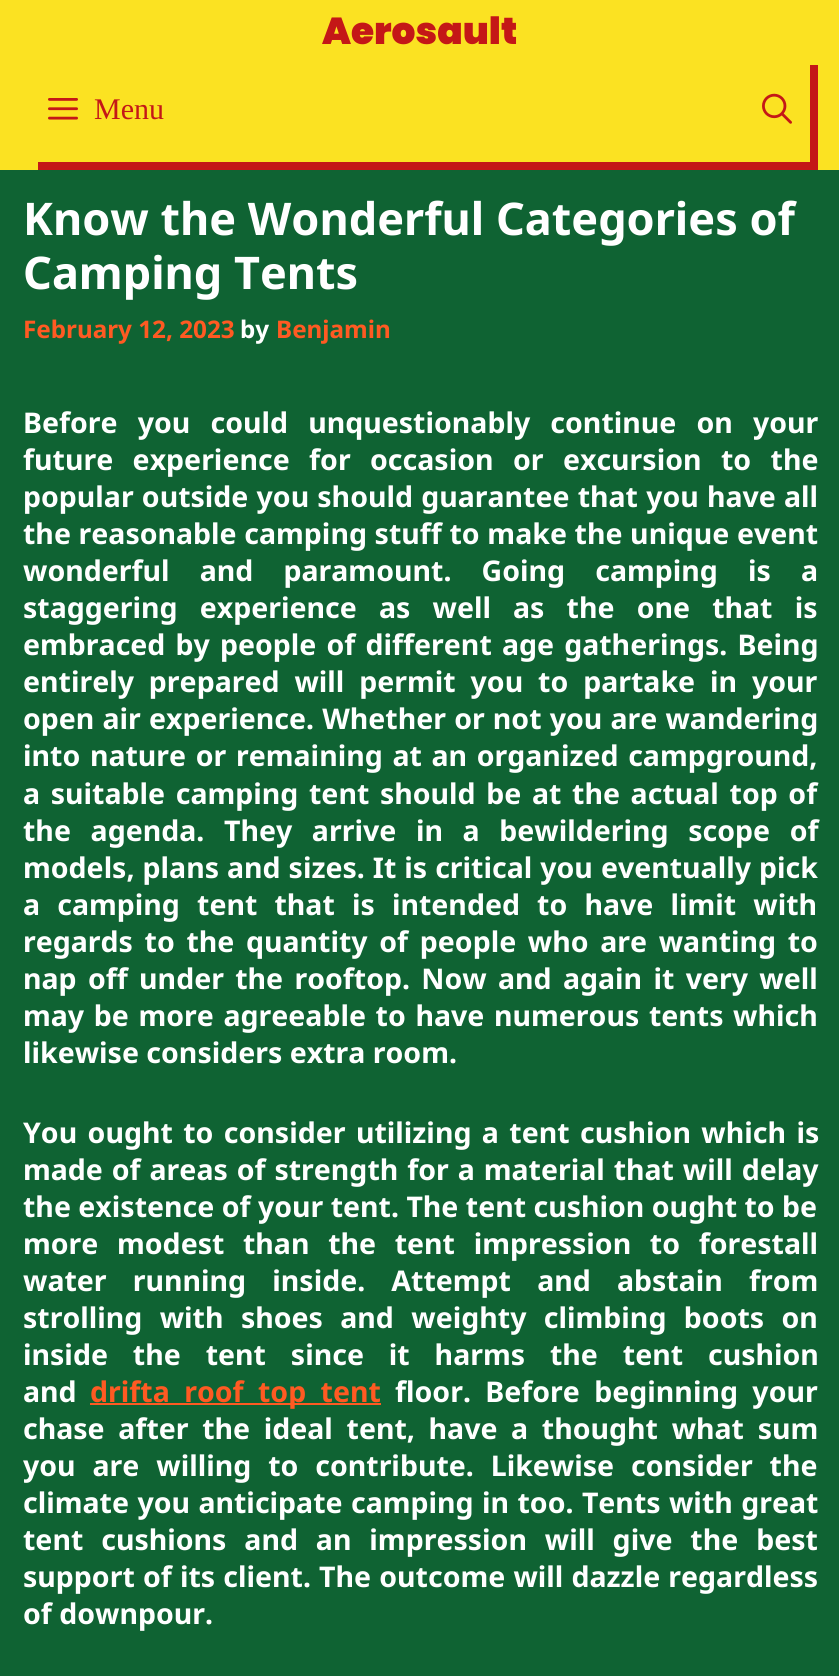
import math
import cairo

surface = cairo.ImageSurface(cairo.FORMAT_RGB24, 839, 1676)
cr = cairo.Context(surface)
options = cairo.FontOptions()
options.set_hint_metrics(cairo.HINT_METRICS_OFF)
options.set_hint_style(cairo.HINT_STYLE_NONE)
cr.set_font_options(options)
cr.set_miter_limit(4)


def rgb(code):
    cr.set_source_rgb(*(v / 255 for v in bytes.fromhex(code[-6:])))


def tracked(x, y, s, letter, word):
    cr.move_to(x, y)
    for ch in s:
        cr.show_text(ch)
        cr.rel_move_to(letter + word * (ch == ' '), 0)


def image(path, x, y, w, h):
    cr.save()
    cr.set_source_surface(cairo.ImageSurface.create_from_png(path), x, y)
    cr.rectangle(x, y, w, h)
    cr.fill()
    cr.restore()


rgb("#0f6333")
cr.paint()
rgb("#fbe222")
cr.rectangle(0, 0, 839, 170)
cr.fill()
rgb("#c41717")
cr.new_path()
cr.move_to(38, 162)
cr.line_to(38, 170)
cr.line_to(818, 170)
cr.line_to(818, 65)
cr.line_to(810, 65)
cr.line_to(810, 162)
cr.close_path()
cr.fill()
image("img/1.png", 48, 98, 30, 22)
image("img/2.png", 762, 93, 30, 31)
rgb("#ff5a22")
cr.rectangle(90, 1403, 291, 2)
cr.fill()
cr.select_font_face("Poppins Black")
cr.set_font_size(37.5)
rgb("#c41717")
cr.move_to(322, 44)
cr.show_text("Aerosault")
cr.select_font_face("Liberation Serif")
cr.set_font_size(30)
cr.move_to(94, 119)
cr.show_text("Menu")
cr.select_font_face("Noto Sans", cairo.FONT_SLANT_NORMAL, cairo.FONT_WEIGHT_BOLD)
cr.set_font_size(45)
rgb("#ffffff")
cr.move_to(23, 235)
cr.show_text("Know the Wonderful Categories of")
cr.move_to(23, 289)
cr.show_text("Camping Tents")
cr.set_font_size(24.25)
rgb("#ff5a22")
cr.move_to(23, 338)
cr.show_text("February 12, 2023")
rgb("#ffffff")
cr.move_to(240, 338)
cr.show_text("by")
rgb("#ff5a22")
cr.move_to(276, 338)
cr.show_text("Benjamin")
cr.set_font_size(28.5)
rgb("#ffffff")
tracked(23, 433, "Before you could unquestionably continue on your", 0, 12.75)
tracked(23, 470, "future experience for occasion or excursion to the", 0, 12)
tracked(23, 507, "popular outside you should guarantee that you have all", 0, 0.75)
tracked(23, 544, "the reasonable camping stuff to make the unique event", 0, 0.25)
tracked(23, 581, "wonderful and paramount. Going camping is a", 0, 22.75)
tracked(23, 618, "staggering experience as well as the one that is", 0, 14.75)
tracked(23, 655, "embraced by people of different age gatherings. Being", 0, 2.75)
tracked(23, 692, "entirely prepared will permit you to partake in your", 0, 7.5)
tracked(23, 729, "open air experience. Whether or not you are wandering", 0, 0.75)
tracked(23, 766, "into nature or remaining at an organized campground,", 0, 2.25)
tracked(23, 804, "a suitable camping tent should be at the actual top of", 0, 3.25)
tracked(23, 841, "the agenda. They arrive in a bewildering scope of", 0, 12.25)
tracked(23, 878, "models, plans and sizes. It is critical you eventually pick", 0, 0.6)
tracked(23, 915, "a camping tent that is intended to have limit with", 0, 9.75)
tracked(23, 952, "regards to the quantity of people who are wanting to", 0, 4.25)
tracked(23, 989, "nap off under the rooftop. Now and again it very well", 0, 3.9)
tracked(23, 1026, "may be more agreeable to have numerous tents which", 0, 2.25)
cr.move_to(23, 1063)
cr.show_text("likewise considers extra room.")
tracked(23, 1143, "You ought to consider utilizing a tent cushion which is", 0, 3)
tracked(23, 1180, "made of areas of strength for a material that will delay", 0, 1.5)
cr.move_to(23, 1217)
cr.show_text("the existence of your tent. The tent cushion ought to be")
tracked(23, 1254, "more modest than the tent impression to forestall", 0, 11.25)
tracked(23, 1291, "water running inside. Attempt and abstain from", 0, 18.75)
tracked(23, 1328, "strolling with shoes and weighty climbing boots on", 0, 10)
tracked(23, 1365, "inside the tent since it harms the tent cushion", 0, 17.5)
cr.move_to(23, 1402)
cr.show_text("and")
rgb("#ff5a22")
tracked(90, 1402, "drifta roof top tent", 0, 7)
rgb("#ffffff")
tracked(395, 1402, "floor. Before beginning your", 0, 7)
tracked(23, 1439, "chase after the ideal tent, have a thought what sum", 0, 6.25)
tracked(23, 1476, "you are willing to contribute. Likewise consider the", 0, 9.5)
tracked(23, 1513, "climate you anticipate camping in too. Tents with great", 0, 1)
tracked(23, 1550, "tent cushions and an impression will give the best", 0, 10.5)
tracked(23, 1587, "support of its client. The outcome will dazzle regardless", 0, 0.75)
cr.move_to(23, 1624)
cr.show_text("of downpour.")
surface.write_to_png("page.png")
